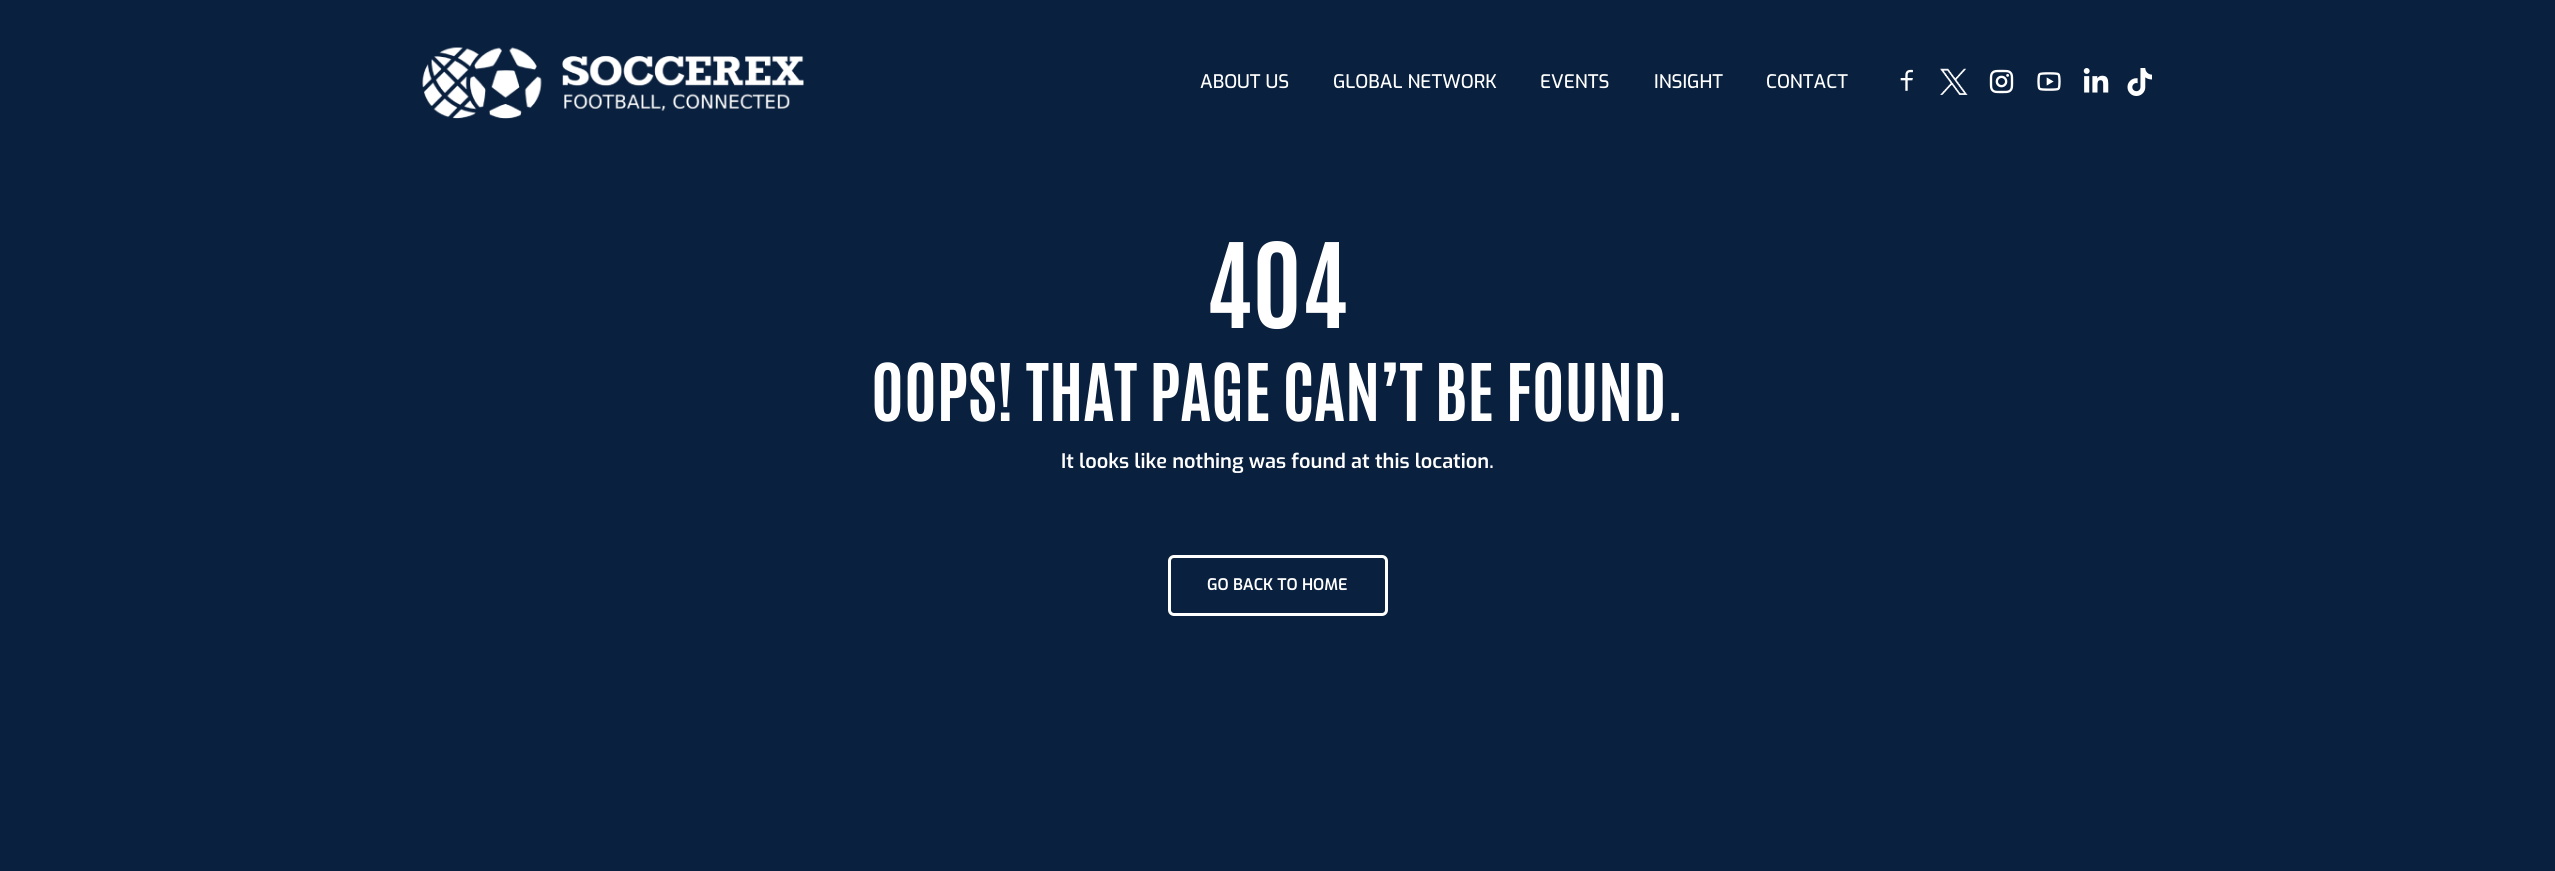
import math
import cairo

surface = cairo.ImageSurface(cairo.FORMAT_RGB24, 2555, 871)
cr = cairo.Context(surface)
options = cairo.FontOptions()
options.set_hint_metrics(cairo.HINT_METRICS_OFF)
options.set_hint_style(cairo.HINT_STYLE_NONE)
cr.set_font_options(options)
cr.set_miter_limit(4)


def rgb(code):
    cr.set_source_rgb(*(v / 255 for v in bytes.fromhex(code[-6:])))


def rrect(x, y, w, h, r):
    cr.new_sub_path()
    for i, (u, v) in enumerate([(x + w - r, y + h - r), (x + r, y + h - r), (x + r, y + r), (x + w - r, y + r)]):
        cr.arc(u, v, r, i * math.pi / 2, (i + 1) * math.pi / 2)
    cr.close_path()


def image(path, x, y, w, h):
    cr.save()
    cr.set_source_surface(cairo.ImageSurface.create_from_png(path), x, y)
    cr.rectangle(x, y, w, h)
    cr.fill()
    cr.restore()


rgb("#09203e")
cr.paint()
image("img/1.png", 422, 47, 382, 72)
image("img/2.png", 1900, 69, 13, 22)
image("img/3.png", 1940, 68, 28, 27)
image("img/4.png", 1989, 69, 25, 25)
image("img/5.png", 2037, 72, 24, 19)
image("img/6.png", 2083, 68, 26, 25)
image("img/7.png", 2127, 68, 25, 28)
rrect(1169.5, 556.5, 217, 58, 4.5)
rgb("#ffffff")
cr.set_line_width(3)
cr.stroke()
cr.select_font_face("Exo Medium")
cr.set_font_size(18.75)
for x, y, s in [
    (1200, 88, "ABOUT US"),
    (1333, 88, "GLOBAL NETWORK"),
    (1540, 88, "EVENTS"),
    (1654, 88, "INSIGHT"),
    (1766, 88, "CONTACT"),
]:
    cr.move_to(x, y)
    cr.show_text(s)
cr.select_font_face("Antonio", cairo.FONT_SLANT_NORMAL, cairo.FONT_WEIGHT_BOLD)
cr.set_font_size(100)
cr.move_to(1206, 328)
cr.show_text("404")
cr.set_font_size(67.5)
cr.move_to(871, 421)
cr.show_text("OOPS! THAT PAGE CAN’T BE FOUND.")
cr.select_font_face("Exo SemiBold")
cr.set_font_size(20)
cr.move_to(1061, 468)
cr.show_text("It looks like nothing was found at this location.")
cr.set_font_size(16)
cr.move_to(1207, 590)
cr.show_text("GO BACK TO HOME")
surface.write_to_png("page.png")
